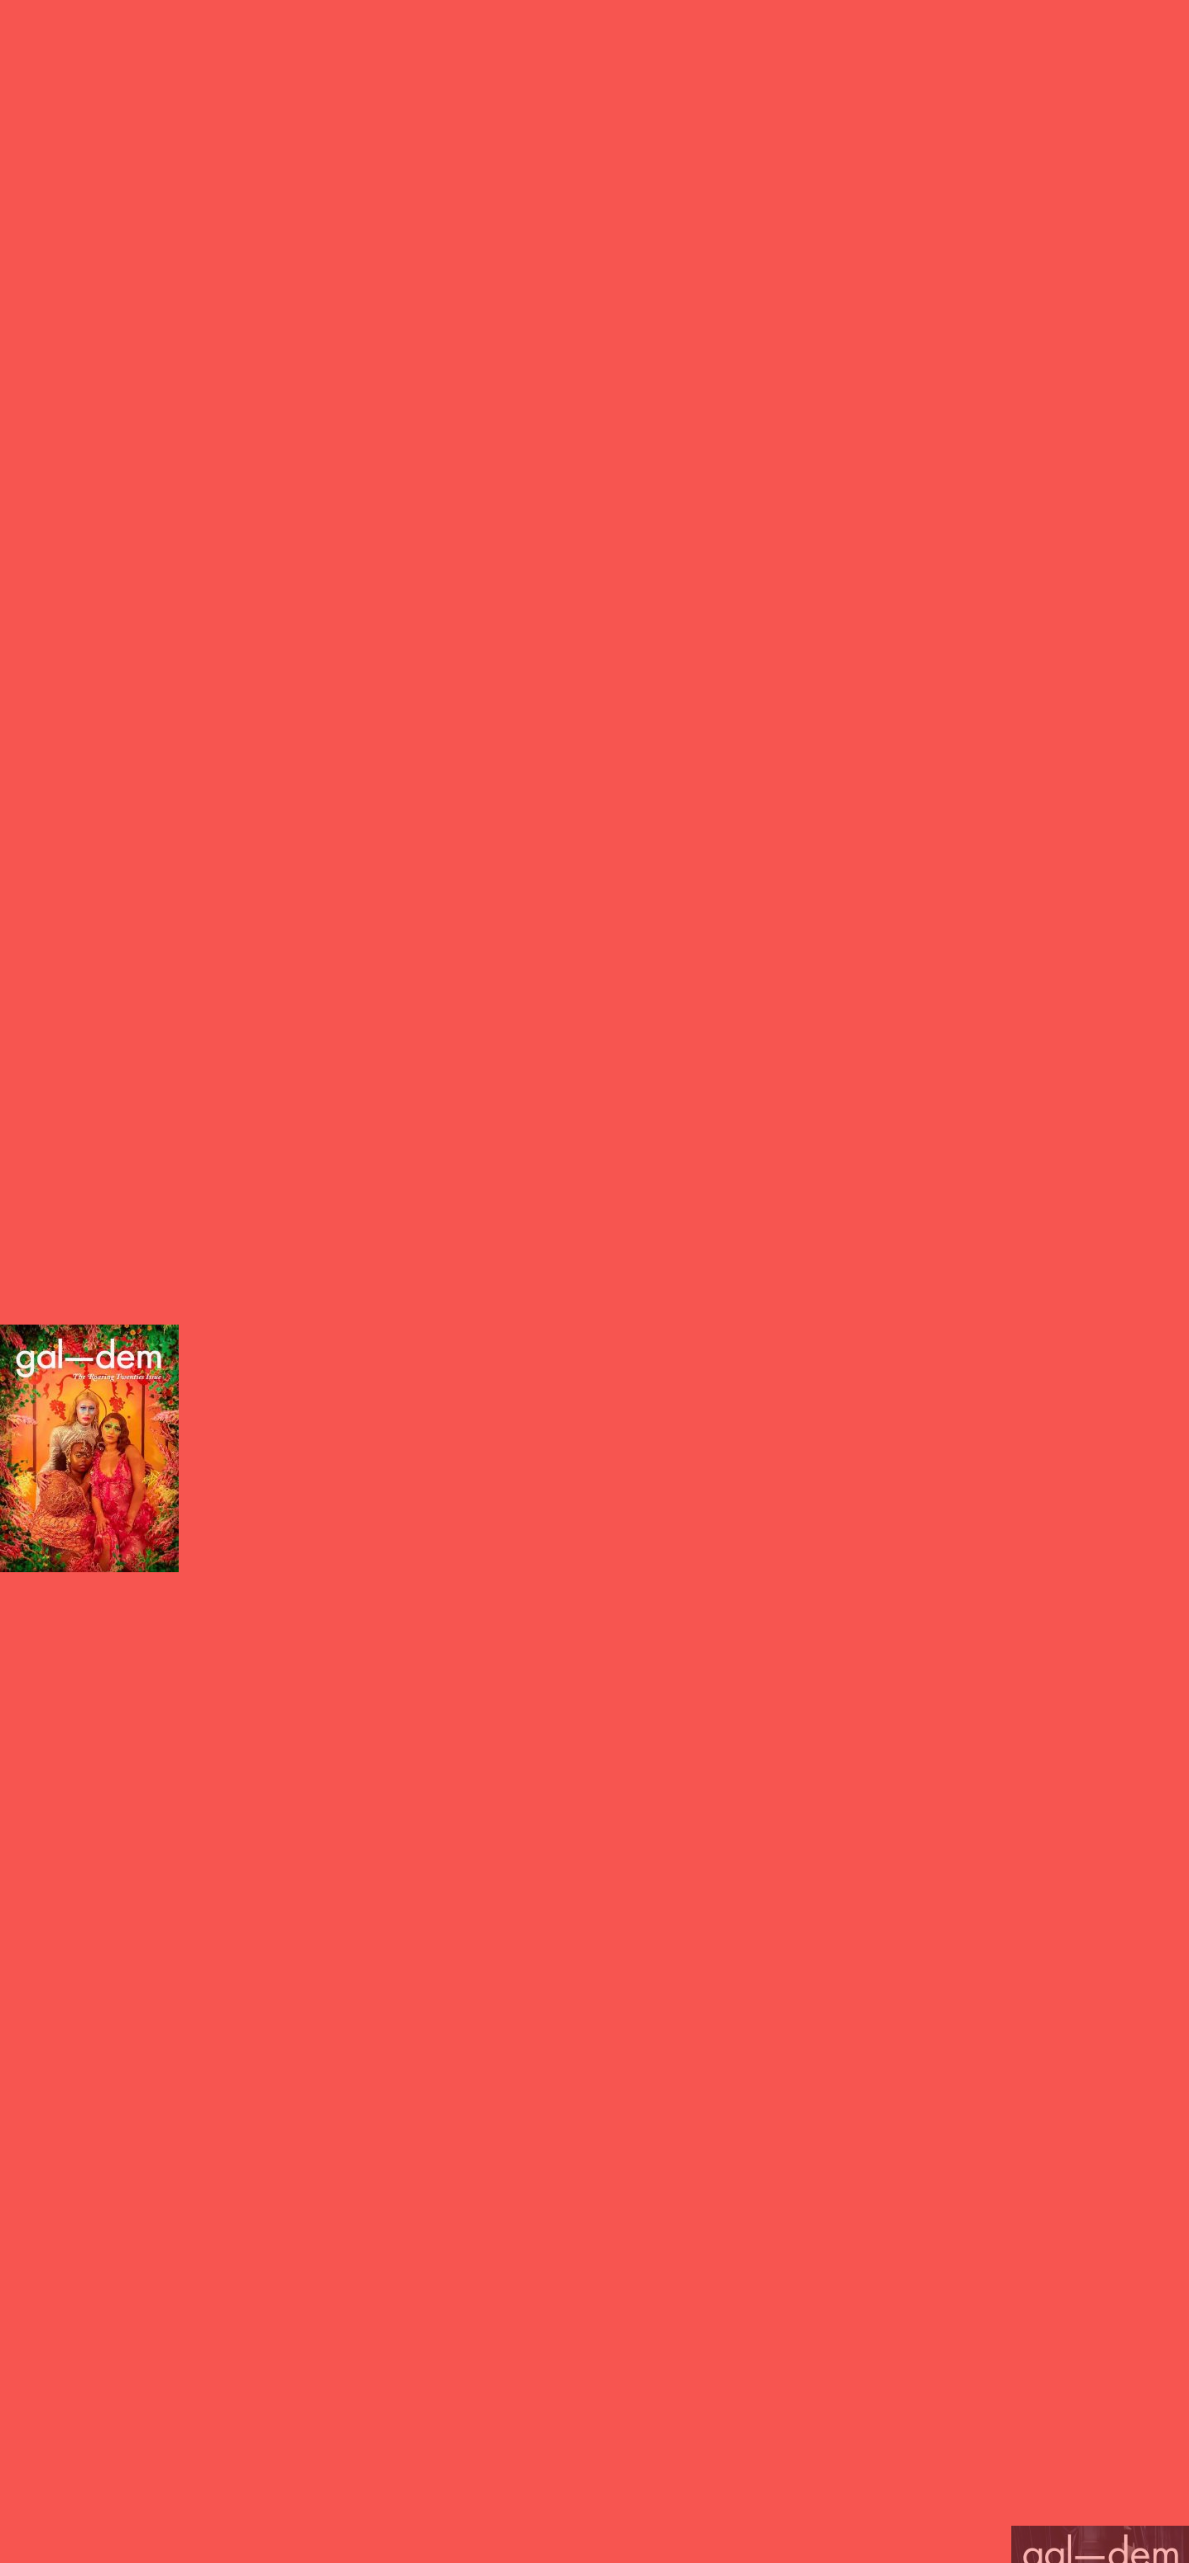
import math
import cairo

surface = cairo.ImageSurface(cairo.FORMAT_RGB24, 1189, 2563)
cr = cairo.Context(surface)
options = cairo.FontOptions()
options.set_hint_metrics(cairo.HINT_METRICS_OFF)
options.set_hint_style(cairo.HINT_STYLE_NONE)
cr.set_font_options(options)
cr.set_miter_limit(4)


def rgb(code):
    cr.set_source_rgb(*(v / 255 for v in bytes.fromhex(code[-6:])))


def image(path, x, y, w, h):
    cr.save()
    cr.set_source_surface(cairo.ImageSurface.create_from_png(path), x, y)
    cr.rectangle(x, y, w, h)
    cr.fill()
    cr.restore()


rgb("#f75550")
cr.paint()
image("img/1.png", 0, 1324, 179, 249)
image("img/2.png", 1011, 2525, 178, 38)
surface.write_to_png("page.png")
